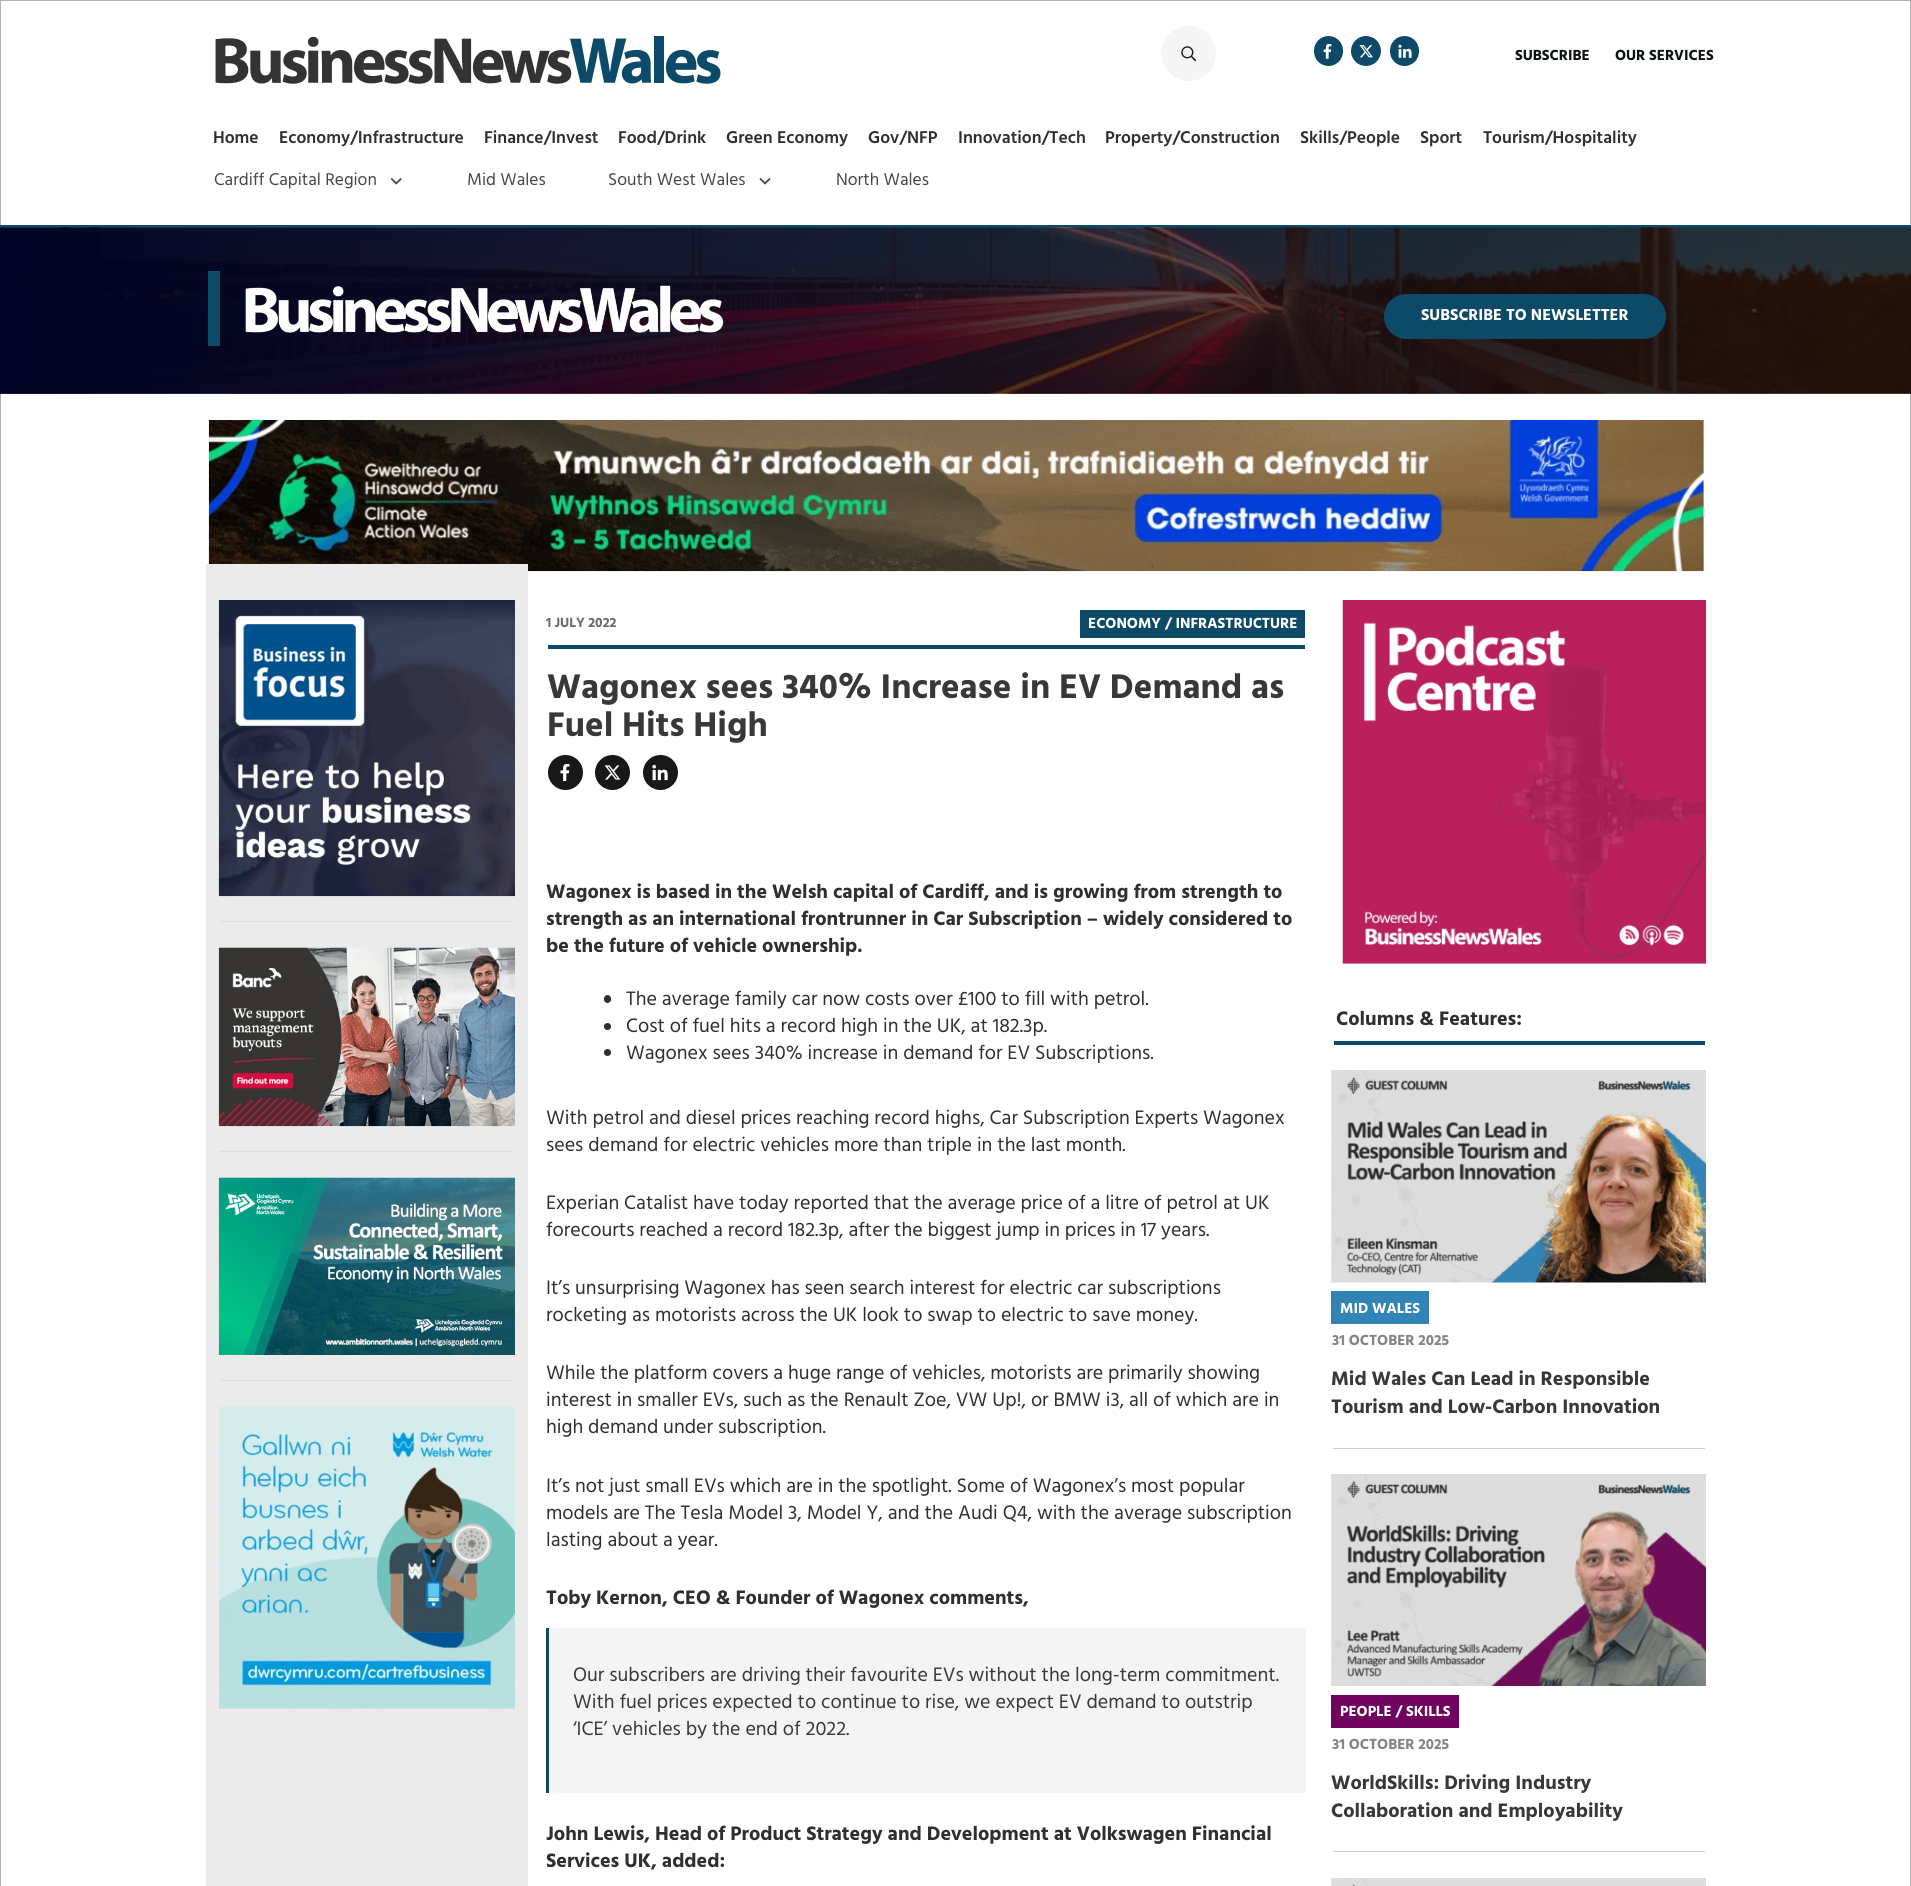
import math
import cairo

surface = cairo.ImageSurface(cairo.FORMAT_RGB24, 1911, 1886)
cr = cairo.Context(surface)
options = cairo.FontOptions()
options.set_hint_metrics(cairo.HINT_METRICS_OFF)
options.set_hint_style(cairo.HINT_STYLE_NONE)
cr.set_font_options(options)
cr.set_miter_limit(4)


def rgb(code):
    cr.set_source_rgb(*(v / 255 for v in bytes.fromhex(code[-6:])))


def rrect(x, y, w, h, r):
    cr.new_sub_path()
    for i, (u, v) in enumerate([(x + w - r, y + h - r), (x + r, y + h - r), (x + r, y + r), (x + w - r, y + r)]):
        cr.arc(u, v, r, i * math.pi / 2, (i + 1) * math.pi / 2)
    cr.close_path()


def image(path, x, y, w, h):
    cr.save()
    cr.set_source_surface(cairo.ImageSurface.create_from_png(path), x, y)
    cr.rectangle(x, y, w, h)
    cr.fill()
    cr.restore()


rgb("#ffffff")
cr.paint()
cr.rectangle(0.5, 0.5, 1910, 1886)
rgb("#b1afaf")
cr.set_line_width(1)
cr.stroke()
image("img/1.png", 215, 36, 506, 48)
rgb("#f5f5f5")
cr.arc(1188.5, 53.5, 27.5, 0, 2 * math.pi)
cr.fill()
image("img/2.png", 1181, 46, 15, 15)
rgb("#0d4a68")
rrect(1314, 36, 29, 30, 14.5)
cr.fill()
image("img/3.png", 1323, 44, 9, 15)
cr.arc(1366, 51, 15, 0, 2 * math.pi)
cr.fill()
image("img/4.png", 1359, 45, 14, 13)
rrect(1390, 36, 29, 30, 14.5)
cr.fill()
image("img/5.png", 1398, 44, 14, 14)
image("img/6.png", 390, 178, 12, 7)
image("img/7.png", 759, 178, 12, 7)
cr.rectangle(0, 225, 1911, 3)
cr.fill()
image("img/8.png", 0, 227, 1911, 167)
cr.rectangle(208, 271, 12, 75)
cr.fill()
image("img/9.png", 245, 285, 479, 48)
rrect(1384, 294, 282, 45, 22.5)
cr.fill()
image("img/10.png", 208, 420, 1496, 152)
rgb("#ebebeb")
cr.rectangle(206, 564, 322, 1322)
cr.fill()
image("img/11.png", 218, 600, 297, 297)
rgb("#dedede")
cr.rectangle(220, 921, 294, 1)
cr.fill()
image("img/12.png", 218, 947, 297, 180)
cr.rectangle(220, 1151, 294, 1)
cr.fill()
image("img/13.png", 218, 1177, 297, 178)
cr.rectangle(220, 1380, 294, 1)
cr.fill()
image("img/14.png", 219, 1406, 296, 303)
rgb("#0d4a68")
cr.rectangle(1080, 610, 225, 28)
cr.fill()
rgb("#0d4a69")
cr.rectangle(548, 645, 757, 4)
cr.fill()
rgb("#181818")
cr.arc(565.5, 772.5, 17.5, 0, 2 * math.pi)
cr.fill()
image("img/15.png", 560, 764, 10, 17)
cr.arc(612.5, 772.5, 17.5, 0, 2 * math.pi)
cr.fill()
image("img/16.png", 604, 765, 17, 15)
cr.arc(660.5, 772.5, 17.5, 0, 2 * math.pi)
cr.fill()
image("img/17.png", 652, 764, 16, 17)
rgb("#2f2f2f")
rrect(604, 995, 7, 8, 3.5)
cr.fill()
cr.arc(607.5, 1026.5, 3.5, 0, 2 * math.pi)
cr.fill()
cr.arc(607.5, 1052.5, 3.5, 0, 2 * math.pi)
cr.fill()
rgb("#f4f4f4")
cr.rectangle(549, 1628, 757, 165)
cr.fill()
rgb("#0d4a69")
cr.rectangle(546, 1628, 3, 165)
cr.fill()
image("img/18.png", 1342, 600, 365, 364)
cr.rectangle(1334, 1041, 371, 4)
cr.fill()
image("img/19.png", 1331, 1070, 375, 213)
rgb("#3384b6")
cr.rectangle(1331, 1291, 98, 33)
cr.fill()
rgb("#cecece")
cr.rectangle(1333, 1448, 372, 1)
cr.fill()
image("img/20.png", 1331, 1474, 375, 212)
rgb("#70035e")
cr.rectangle(1331, 1695, 128, 33)
cr.fill()
rgb("#cecece")
cr.rectangle(1333, 1851, 372, 1)
cr.fill()
image("img/21.png", 1331, 1878, 375, 8)
cr.select_font_face("Hind", cairo.FONT_SLANT_NORMAL, cairo.FONT_WEIGHT_BOLD)
cr.set_font_size(15)
rgb("#0c1115")
cr.move_to(1515, 60)
cr.show_text("SUBSCRIBE")
cr.move_to(1615, 60)
cr.show_text("OUR SERVICES")
cr.select_font_face("Hind SemiBold")
cr.set_font_size(17.5)
rgb("#2f2f2f")
for x, y, s in [
    (213, 143, "Home"),
    (279, 143, "Economy/Infrastructure"),
    (484, 143, "Finance/Invest"),
    (618, 143, "Food/Drink"),
    (726, 143, "Green Economy"),
    (868, 143, "Gov/NFP"),
    (958, 143, "Innovation/Tech"),
    (1105, 143, "Property/Construction"),
    (1300, 143, "Skills/People"),
    (1420, 143, "Sport"),
    (1483, 143, "Tourism/Hospitality"),
]:
    cr.move_to(x, y)
    cr.show_text(s)
cr.select_font_face("Hind")
rgb("#474747")
for x, y, s in [
    (214, 185, "Cardiff Capital Region"),
    (467, 185, "Mid Wales"),
    (608, 185, "South West Wales"),
    (836, 185, "North Wales"),
]:
    cr.move_to(x, y)
    cr.show_text(s)
cr.select_font_face("Hind", cairo.FONT_SLANT_NORMAL, cairo.FONT_WEIGHT_BOLD)
cr.set_font_size(16.25)
rgb("#ffffff")
cr.move_to(1421, 320)
cr.show_text("SUBSCRIBE TO NEWSLETTER")
cr.set_font_size(13.75)
rgb("#6c6c6c")
cr.move_to(546, 627)
cr.show_text("1 JULY 2022")
cr.set_font_size(15)
rgb("#ffffff")
cr.move_to(1088, 628)
cr.show_text("ECONOMY / INFRASTRUCTURE")
cr.set_font_size(35)
rgb("#383838")
cr.move_to(547, 698)
cr.show_text("Wagonex sees 340% Increase in EV Demand as")
cr.move_to(547, 736)
cr.show_text("Fuel Hits High")
cr.set_font_size(20)
rgb("#2f2f2f")
for x, y, s in [
    (546, 898, "Wagonex is based in the Welsh capital of Cardiff, and is growing from strength to"),
    (546, 925, "strength as an international frontrunner in Car Subscription – widely considered to"),
    (546, 952, "be the future of vehicle ownership."),
]:
    cr.move_to(x, y)
    cr.show_text(s)
cr.select_font_face("Hind")
for x, y, s in [
    (626, 1005, "The average family car now costs over £100 to fill with petrol."),
    (626, 1032, "Cost of fuel hits a record high in the UK, at 182.3p."),
    (626, 1059, "Wagonex sees 340% increase in demand for EV Subscriptions."),
    (546, 1124, "With petrol and diesel prices reaching record highs, Car Subscription Experts Wagonex"),
    (546, 1151, "sees demand for electric vehicles more than triple in the last month."),
    (546, 1209, "Experian Catalist have today reported that the average price of a litre of petrol at UK"),
    (546, 1236, "forecourts reached a record 182.3p, after the biggest jump in prices in 17 years."),
    (546, 1294, "It’s unsurprising Wagonex has seen search interest for electric car subscriptions"),
    (546, 1321, "rocketing as motorists across the UK look to swap to electric to save money."),
    (546, 1379, "While the platform covers a huge range of vehicles, motorists are primarily showing"),
    (546, 1406, "interest in smaller EVs, such as the Renault Zoe, VW Up!, or BMW i3, all of which are in"),
    (546, 1433, "high demand under subscription."),
    (546, 1492, "It’s not just small EVs which are in the spotlight. Some of Wagonex’s most popular"),
    (546, 1519, "models are The Tesla Model 3, Model Y, and the Audi Q4, with the average subscription"),
    (546, 1546, "lasting about a year."),
]:
    cr.move_to(x, y)
    cr.show_text(s)
cr.select_font_face("Hind", cairo.FONT_SLANT_NORMAL, cairo.FONT_WEIGHT_BOLD)
cr.move_to(546, 1604)
cr.show_text("Toby Kernon, CEO & Founder of Wagonex comments,")
cr.select_font_face("Hind")
rgb("#383838")
for x, y, s in [
    (573, 1681, "Our subscribers are driving their favourite EVs without the long-term commitment."),
    (573, 1708, "With fuel prices expected to continue to rise, we expect EV demand to outstrip"),
    (573, 1735, "‘ICE’ vehicles by the end of 2022."),
]:
    cr.move_to(x, y)
    cr.show_text(s)
cr.select_font_face("Hind", cairo.FONT_SLANT_NORMAL, cairo.FONT_WEIGHT_BOLD)
rgb("#2f2f2f")
for x, y, s in [
    (546, 1840, "John Lewis, Head of Product Strategy and Development at Volkswagen Financial"),
    (546, 1867, "Services UK, added:"),
    (1336, 1025, "Columns & Features:"),
]:
    cr.move_to(x, y)
    cr.show_text(s)
cr.set_font_size(15)
rgb("#ffffff")
cr.move_to(1340, 1313)
cr.show_text("MID WALES")
rgb("#858585")
cr.move_to(1332, 1345)
cr.show_text("31 OCTOBER 2025")
cr.set_font_size(20)
rgb("#383838")
cr.move_to(1331, 1385)
cr.show_text("Mid Wales Can Lead in Responsible")
cr.move_to(1331, 1413)
cr.show_text("Tourism and Low-Carbon Innovation")
cr.set_font_size(15)
rgb("#ffffff")
cr.move_to(1340, 1716)
cr.show_text("PEOPLE / SKILLS")
rgb("#858585")
cr.move_to(1332, 1749)
cr.show_text("31 OCTOBER 2025")
cr.set_font_size(20)
rgb("#383838")
cr.move_to(1331, 1789)
cr.show_text("WorldSkills: Driving Industry")
cr.move_to(1331, 1817)
cr.show_text("Collaboration and Employability")
surface.write_to_png("page.png")
